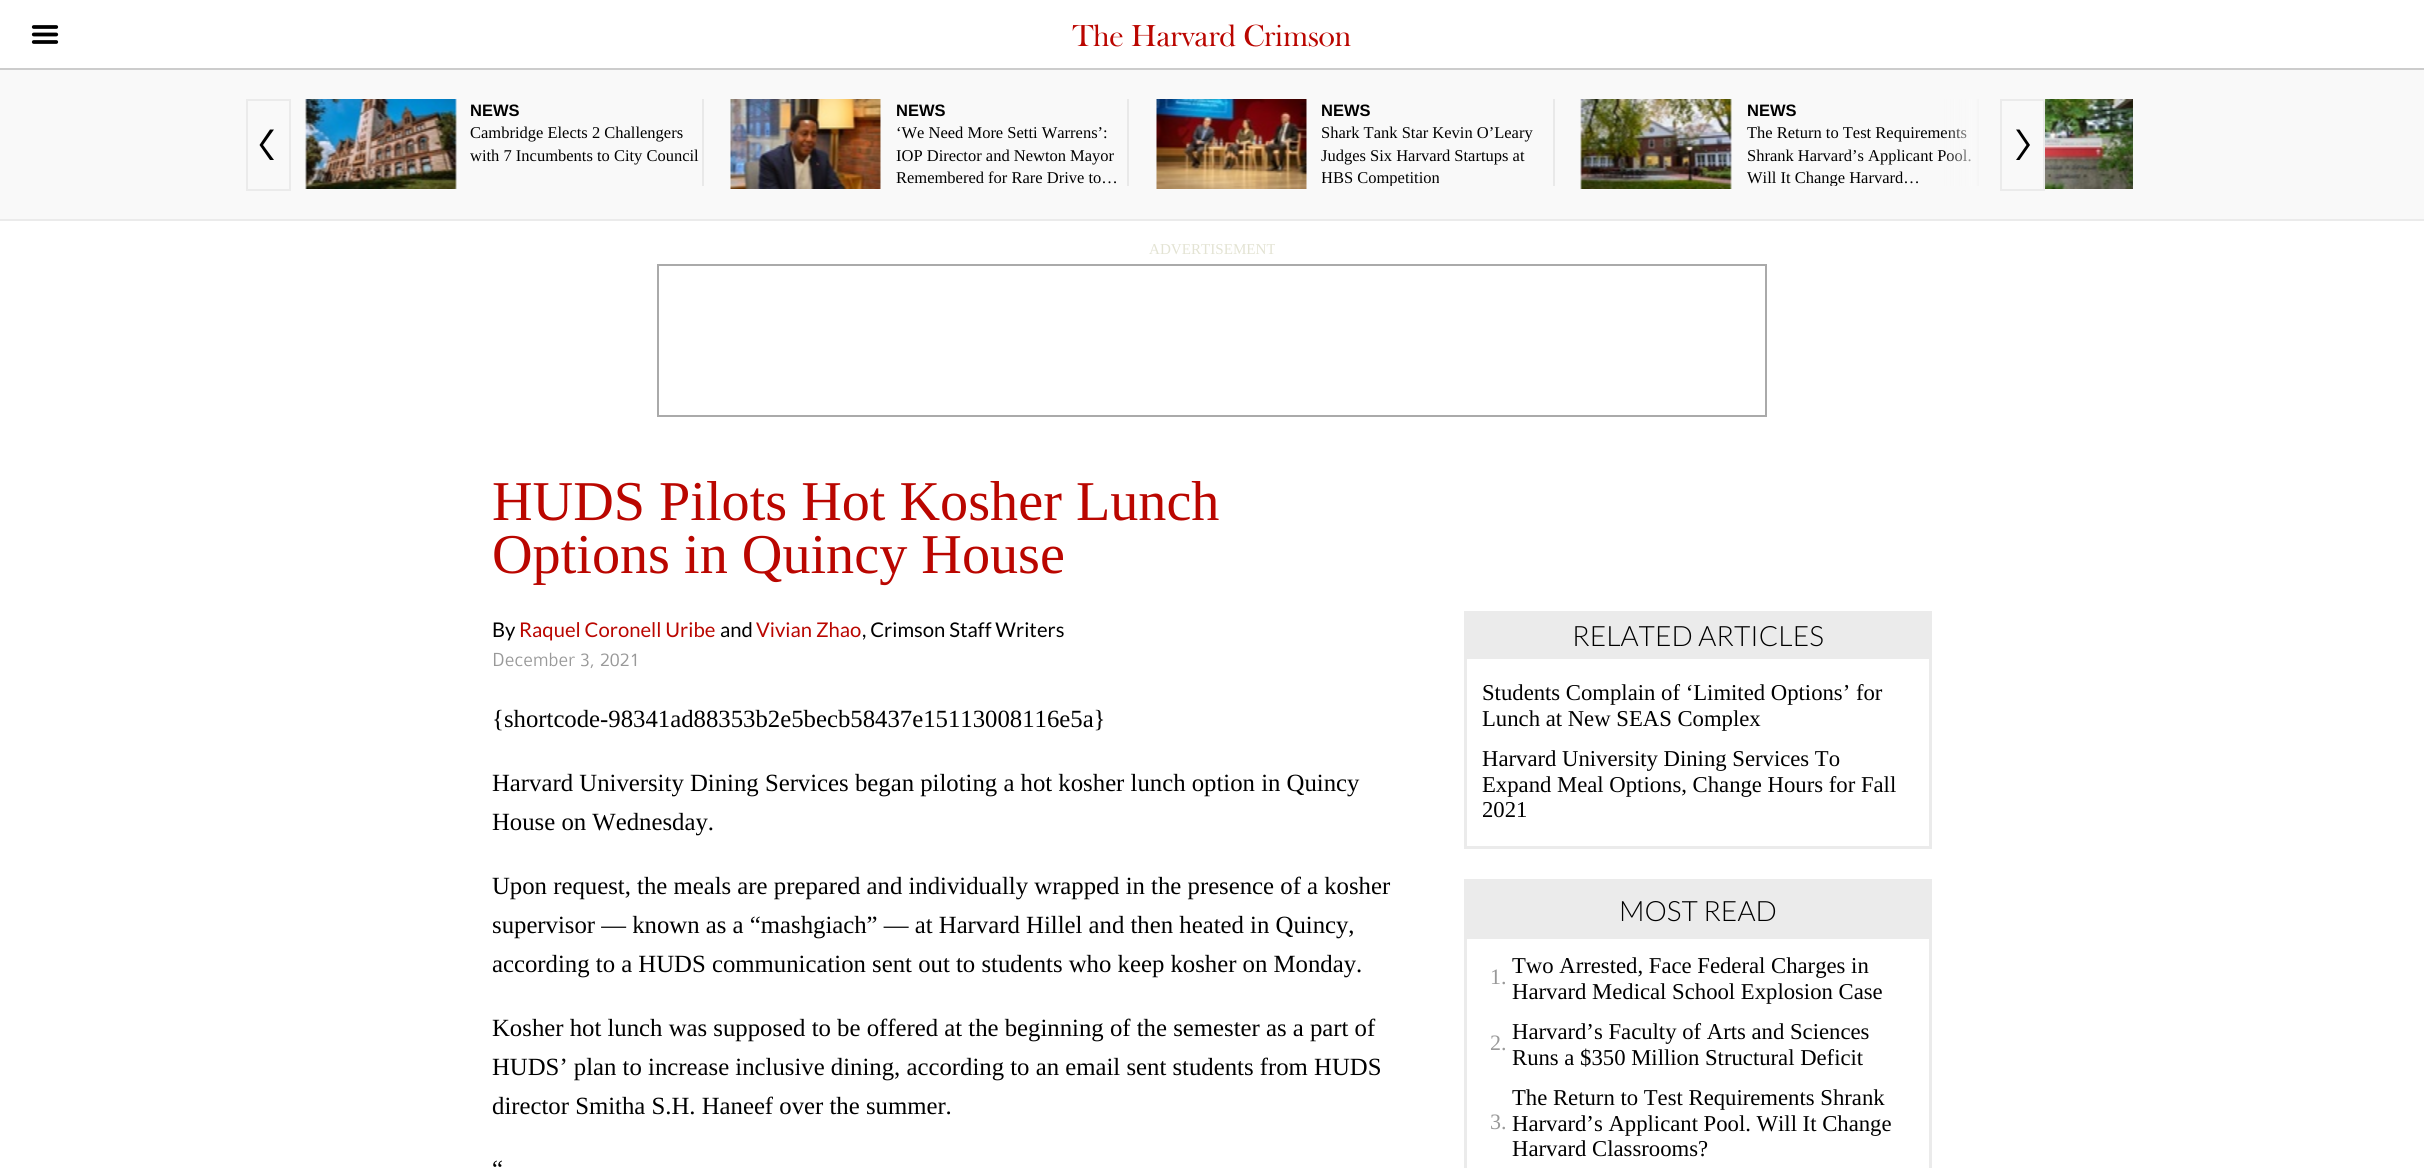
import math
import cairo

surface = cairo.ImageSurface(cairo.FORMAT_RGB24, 2424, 1168)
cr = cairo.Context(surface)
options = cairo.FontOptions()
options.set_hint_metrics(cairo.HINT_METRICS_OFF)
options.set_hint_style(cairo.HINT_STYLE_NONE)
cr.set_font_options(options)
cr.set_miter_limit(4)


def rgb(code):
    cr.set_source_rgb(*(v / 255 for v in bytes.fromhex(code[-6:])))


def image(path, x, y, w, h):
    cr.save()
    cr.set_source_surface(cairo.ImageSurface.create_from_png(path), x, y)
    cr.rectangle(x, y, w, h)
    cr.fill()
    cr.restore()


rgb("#ffffff")
cr.paint()
rgb("#cccccc")
cr.rectangle(0, 68, 2424, 2)
cr.fill()
image("img/1.png", 31, 25, 28, 19)
rgb("#f9f9f9")
cr.rectangle(0, 70, 2424, 149)
cr.fill()
rgb("#ebebeb")
cr.rectangle(0, 219, 2424, 2)
cr.fill()
cr.rectangle(247, 100, 43, 90)
cr.stroke()
rgb("#000000")
cr.new_path()
cr.move_to(274, 129.5)
cr.line_to(270, 129.5)
cr.line_to(259.5, 145)
cr.line_to(270, 160)
cr.line_to(274, 160)
cr.line_to(263, 145)
cr.close_path()
cr.fill()
cr.rectangle(2001, 100, 43, 90)
rgb("#ebebeb")
cr.stroke()
rgb("#000000")
cr.new_path()
cr.move_to(2019.5, 129.5)
cr.line_to(2016, 129.5)
cr.line_to(2026.5, 145)
cr.line_to(2016, 160)
cr.line_to(2019.5, 160)
cr.line_to(2030, 145)
cr.close_path()
cr.fill()
image("img/2.png", 305, 99, 152, 90)
rgb("#e9e9e9")
cr.rectangle(702, 99, 2, 87)
cr.fill()
image("img/3.png", 730, 99, 151, 90)
cr.rectangle(1127, 99, 2, 87)
cr.fill()
image("img/4.png", 1156, 99, 151, 90)
cr.rectangle(1553, 99, 2, 87)
cr.fill()
image("img/5.png", 1580, 99, 152, 90)
cr.rectangle(1977, 99, 2, 87)
cr.fill()
image("img/6.png", 2045, 99, 88, 90)
cr.rectangle(658, 265, 1108, 151)
rgb("#aaaaaa")
cr.stroke()
cr.rectangle(1465.5, 612.5, 465, 235)
rgb("#ebebeb")
cr.set_line_width(3)
cr.stroke()
cr.rectangle(1467, 614, 462, 45)
cr.fill()
cr.rectangle(1465.5, 880.5, 465, 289)
cr.stroke()
cr.rectangle(1467, 882, 462, 57)
cr.fill()
cr.select_font_face("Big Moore")
cr.set_font_size(30)
rgb("#ba0600")
cr.move_to(1073, 46)
cr.show_text("The Harvard Crimson")
cr.select_font_face("Liberation Sans", cairo.FONT_SLANT_NORMAL, cairo.FONT_WEIGHT_BOLD)
cr.set_font_size(16.5)
rgb("#000000")
cr.move_to(470, 116)
cr.show_text("NEWS")
cr.select_font_face("Liberation Serif")
cr.move_to(470, 138)
cr.show_text("Cambridge Elects 2 Challengers")
cr.move_to(470, 161)
cr.show_text("with 7 Incumbents to City Council")
cr.select_font_face("Liberation Sans", cairo.FONT_SLANT_NORMAL, cairo.FONT_WEIGHT_BOLD)
cr.move_to(896, 116)
cr.show_text("NEWS")
cr.select_font_face("Liberation Serif")
for x, y, s in [
    (896, 138, "‘We Need More Setti Warrens’:"),
    (896, 161, "IOP Director and Newton Mayor"),
    (896, 183, "Remembered for Rare Drive to…"),
]:
    cr.move_to(x, y)
    cr.show_text(s)
cr.select_font_face("Liberation Sans", cairo.FONT_SLANT_NORMAL, cairo.FONT_WEIGHT_BOLD)
cr.move_to(1321, 116)
cr.show_text("NEWS")
cr.select_font_face("Liberation Serif")
cr.move_to(1321, 138)
cr.show_text("Shark Tank Star Kevin O’Leary")
cr.move_to(1321, 161)
cr.show_text("Judges Six Harvard Startups at")
cr.save()
cr.rectangle(1322, 99, 231, 87)
cr.clip()
cr.move_to(1321, 183)
cr.show_text("HBS Competition")
cr.restore()
cr.select_font_face("Liberation Sans", cairo.FONT_SLANT_NORMAL, cairo.FONT_WEIGHT_BOLD)
cr.move_to(1747, 116)
cr.show_text("NEWS")
cr.select_font_face("Liberation Serif")
cr.move_to(1747, 138)
cr.show_text("The Return to Test Requirements")
cr.move_to(1747, 161)
cr.show_text("Shrank Harvard’s Applicant Pool.")
gradient = cairo.LinearGradient(1988, 144, 1943, 144)
gradient.add_color_stop_rgba(0, 0.976, 0.976, 0.976, 1)
gradient.add_color_stop_rgba(1, 0.976, 0.976, 0.976, 0)
cr.set_source(gradient)
cr.rectangle(1944, 99, 35, 87)
cr.fill()
cr.save()
cr.rectangle(1746, 99, 231, 87)
cr.clip()
rgb("#000000")
cr.move_to(1747, 183)
cr.show_text("Will It Change Harvard…")
cr.restore()
cr.set_font_size(15.1)
rgb("#e3e3d3")
cr.move_to(1149, 254)
cr.show_text("ADVERTISEMENT")
cr.set_font_size(56.2)
rgb("#ba0600")
cr.move_to(492, 520)
cr.show_text("HUDS Pilots Hot Kosher Lunch")
cr.move_to(492, 573)
cr.show_text("Options in Quincy House")
cr.select_font_face("Lato")
cr.set_font_size(20.25)
rgb("#000000")
cr.move_to(492, 637)
cr.show_text("By")
rgb("#ba0600")
cr.move_to(519, 637)
cr.show_text("Raquel Coronell Uribe")
rgb("#000000")
cr.move_to(720, 637)
cr.show_text("and")
rgb("#ba0600")
cr.move_to(756, 637)
cr.show_text("Vivian Zhao")
rgb("#000000")
cr.move_to(862, 637)
cr.show_text(", Crimson Staff Writers")
cr.select_font_face("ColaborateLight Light")
rgb("#999999")
cr.move_to(492, 666)
cr.show_text("December 3, 2021")
cr.select_font_face("Liberation Serif")
cr.set_font_size(24.75)
rgb("#000000")
for x, y, s in [
    (492, 727, "{shortcode-98341ad88353b2e5becb58437e15113008116e5a}"),
    (492, 791, "Harvard University Dining Services began piloting a hot kosher lunch option in Quincy"),
    (492, 830, "House on Wednesday."),
    (492, 894, "Upon request, the meals are prepared and individually wrapped in the presence of a kosher"),
    (492, 933, "supervisor — known as a “mashgiach” — at Harvard Hillel and then heated in Quincy,"),
    (492, 972, "according to a HUDS communication sent out to students who keep kosher on Monday."),
    (492, 1036, "Kosher hot lunch was supposed to be offered at the beginning of the semester as a part of"),
    (492, 1075, "HUDS’ plan to increase inclusive dining, according to an email sent students from HUDS"),
    (492, 1114, "director Smitha S.H. Haneef over the summer."),
    (492, 1177, "“"),
]:
    cr.move_to(x, y)
    cr.show_text(s)
cr.select_font_face("Lato Light")
cr.set_font_size(28)
cr.move_to(1572, 646)
cr.show_text("RELATED ARTICLES")
cr.select_font_face("Liberation Serif")
cr.set_font_size(22.7)
for x, y, s in [
    (1482, 700, "Students Complain of ‘Limited Options’ for"),
    (1482, 726, "Lunch at New SEAS Complex"),
    (1482, 766, "Harvard University Dining Services To"),
    (1482, 792, "Expand Meal Options, Change Hours for Fall"),
    (1482, 817, "2021"),
]:
    cr.move_to(x, y)
    cr.show_text(s)
cr.select_font_face("Lato Light")
cr.set_font_size(28)
cr.move_to(1619, 921)
cr.show_text("MOST READ")
cr.select_font_face("Liberation Serif")
cr.set_font_size(22)
rgb("#999999")
cr.move_to(1490, 984)
cr.show_text("1.")
cr.set_font_size(22.7)
rgb("#000000")
cr.move_to(1512, 973)
cr.show_text("Two Arrested, Face Federal Charges in")
cr.move_to(1512, 999)
cr.show_text("Harvard Medical School Explosion Case")
cr.set_font_size(22)
rgb("#999999")
cr.move_to(1490, 1050)
cr.show_text("2.")
cr.set_font_size(22.7)
rgb("#000000")
cr.move_to(1512, 1039)
cr.show_text("Harvard’s Faculty of Arts and Sciences")
cr.move_to(1512, 1065)
cr.show_text("Runs a $350 Million Structural Deficit")
cr.set_font_size(22)
rgb("#999999")
cr.move_to(1490, 1129)
cr.show_text("3.")
cr.set_font_size(22.7)
rgb("#000000")
for x, y, s in [
    (1512, 1105, "The Return to Test Requirements Shrank"),
    (1512, 1131, "Harvard’s Applicant Pool. Will It Change"),
    (1512, 1156, "Harvard Classrooms?"),
]:
    cr.move_to(x, y)
    cr.show_text(s)
surface.write_to_png("page.png")
